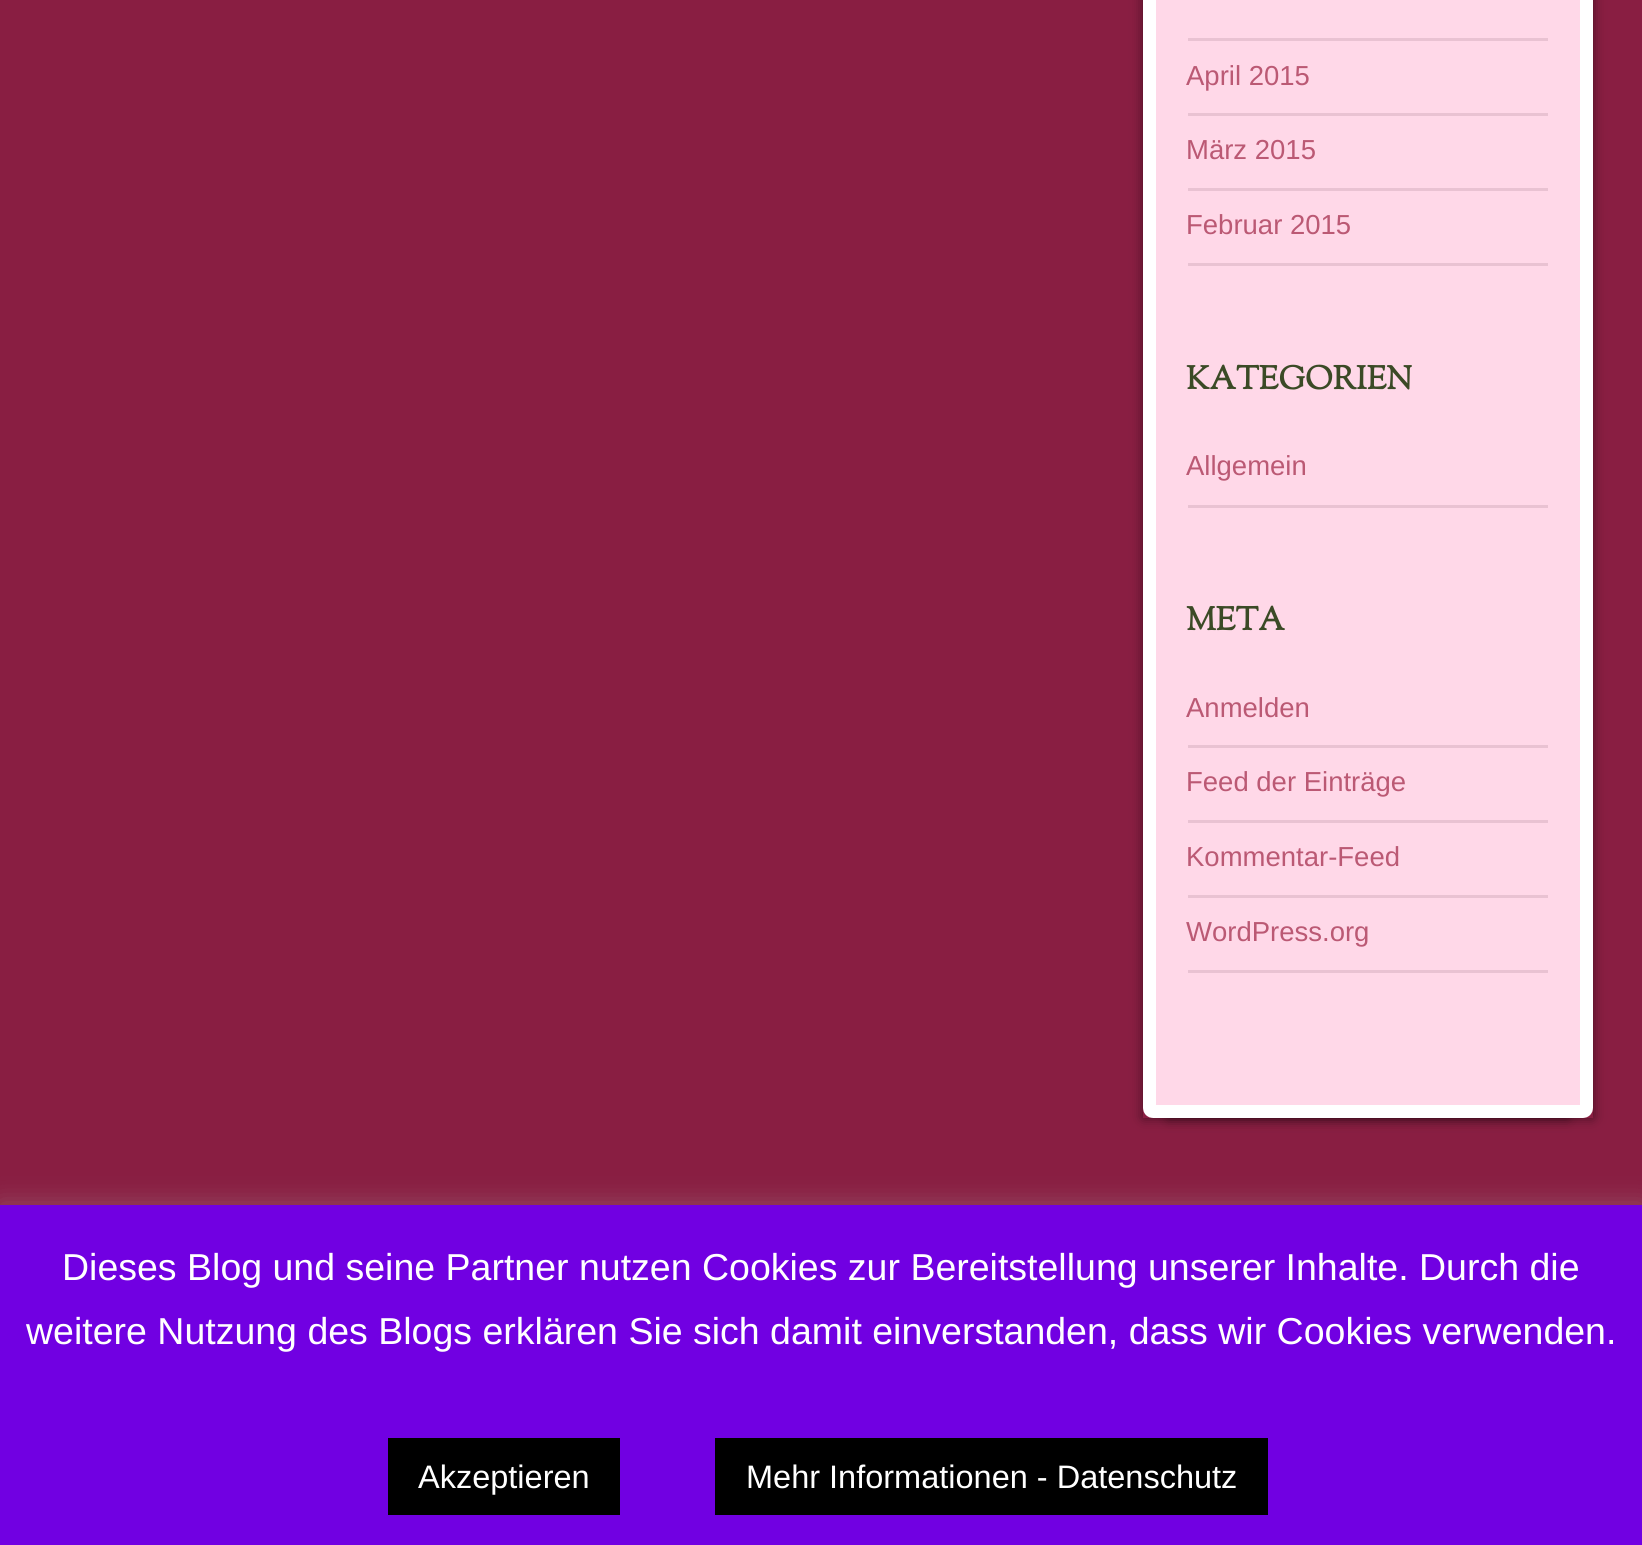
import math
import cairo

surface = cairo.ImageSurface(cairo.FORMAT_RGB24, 1642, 1545)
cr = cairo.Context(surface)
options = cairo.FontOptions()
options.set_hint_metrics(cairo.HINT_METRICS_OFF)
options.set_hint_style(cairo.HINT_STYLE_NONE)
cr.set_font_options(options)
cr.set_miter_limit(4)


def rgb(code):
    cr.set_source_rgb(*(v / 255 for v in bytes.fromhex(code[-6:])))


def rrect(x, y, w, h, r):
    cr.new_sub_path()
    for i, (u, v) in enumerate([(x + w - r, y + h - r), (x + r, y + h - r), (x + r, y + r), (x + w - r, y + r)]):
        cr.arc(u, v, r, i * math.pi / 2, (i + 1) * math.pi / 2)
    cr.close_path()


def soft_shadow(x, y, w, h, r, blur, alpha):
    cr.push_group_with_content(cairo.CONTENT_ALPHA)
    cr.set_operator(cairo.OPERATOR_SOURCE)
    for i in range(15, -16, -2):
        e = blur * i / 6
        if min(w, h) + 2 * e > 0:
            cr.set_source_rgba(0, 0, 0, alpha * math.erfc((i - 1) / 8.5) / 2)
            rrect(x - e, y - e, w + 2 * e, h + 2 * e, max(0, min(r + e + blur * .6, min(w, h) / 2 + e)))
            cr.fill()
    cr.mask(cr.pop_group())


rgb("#891e42")
cr.paint()
cr.save()
cr.set_fill_rule(cairo.FILL_RULE_EVEN_ODD)
cr.new_path()
cr.move_to(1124, 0)
cr.line_to(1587, 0)
cr.line_to(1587, 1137)
cr.line_to(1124, 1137)
cr.close_path()
cr.move_to(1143, -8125)
cr.line_to(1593, -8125)
cr.line_to(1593, 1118)
cr.line_to(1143, 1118)
cr.close_path()
cr.clip()
rgb("#000000")
soft_shadow(1143, -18, 425, 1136, 0, 6, 0.5)
cr.restore()
cr.save()
cr.set_fill_rule(cairo.FILL_RULE_EVEN_ODD)
cr.new_path()
cr.move_to(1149, 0)
cr.line_to(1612, 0)
cr.line_to(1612, 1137)
cr.line_to(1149, 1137)
cr.close_path()
cr.move_to(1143, -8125)
cr.line_to(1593, -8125)
cr.line_to(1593, 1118)
cr.line_to(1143, 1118)
cr.close_path()
cr.clip()
rgb("#000000")
soft_shadow(1168, -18, 425, 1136, 0, 6, 0.5)
cr.restore()
rgb("#ffd8e8")
cr.new_path()
cr.move_to(1149.5, -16.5)
cr.line_to(1586.5, -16.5)
cr.line_to(1586.5, 1108)
cr.curve_to(1586.5, 1110, 1585, 1111.5, 1583, 1111.5)
cr.line_to(1153, 1111.5)
cr.curve_to(1151, 1111.5, 1149.5, 1110, 1149.5, 1108)
cr.close_path()
cr.fill_preserve()
rgb("#ffffff")
cr.set_line_width(13)
cr.stroke()
for x, y, w, h, color in [
    (1188, 38, 360, 3, "#e9c2d2"),
    (1188, 113, 360, 3, "#e9c2d2"),
    (1188, 188, 360, 3, "#e9c2d2"),
    (1188, 263, 360, 3, "#e9c2d2"),
    (1188, 505, 360, 3, "#e9c2d2"),
    (1188, 745, 360, 3, "#e9c2d2"),
    (1188, 820, 360, 3, "#e9c2d2"),
    (1188, 895, 360, 3, "#e9c2d2"),
    (1188, 970, 360, 3, "#e9c2d2"),
]:
    rgb(color)
    cr.rectangle(x, y, w, h)
    cr.fill()
rgb("#acabab")
soft_shadow(0, 1203, 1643, 340, 0, 12.5, 0.3)
for x, y, w, h, color in [
    (0, 1205, 1642, 340, "#7100e2"),
    (388, 1438, 232, 77, "#000000"),
    (715, 1438, 553, 77, "#000000"),
]:
    rgb(color)
    cr.rectangle(x, y, w, h)
    cr.fill()
cr.select_font_face("Liberation Sans")
cr.set_font_size(27.5)
rgb("#bb5974")
for x, y, s in [
    (1186, 85, "April 2015"),
    (1186, 159, "März 2015"),
    (1186, 234, "Februar 2015"),
]:
    cr.move_to(x, y)
    cr.show_text(s)
cr.select_font_face("Sorts Mill Goudy", cairo.FONT_SLANT_NORMAL, cairo.FONT_WEIGHT_BOLD)
cr.set_font_size(32.5)
rgb("#3b4a26")
cr.move_to(1186, 389)
cr.show_text("KATEGORIEN")
cr.select_font_face("Liberation Sans")
cr.set_font_size(27.5)
rgb("#bb5974")
cr.move_to(1186, 475)
cr.show_text("Allgemein")
cr.select_font_face("Sorts Mill Goudy", cairo.FONT_SLANT_NORMAL, cairo.FONT_WEIGHT_BOLD)
cr.set_font_size(32.5)
rgb("#3b4a26")
cr.move_to(1186, 630)
cr.show_text("META")
cr.select_font_face("Liberation Sans")
cr.set_font_size(27.5)
rgb("#bb5974")
for x, y, s in [
    (1186, 717, "Anmelden"),
    (1186, 791, "Feed der Einträge"),
    (1186, 866, "Kommentar-Feed"),
    (1186, 941, "WordPress.org"),
]:
    cr.move_to(x, y)
    cr.show_text(s)
cr.set_font_size(37.5)
rgb("#ffffff")
cr.move_to(62, 1280)
cr.show_text("Dieses Blog und seine Partner nutzen Cookies zur Bereitstellung unserer Inhalte. Durch die")
cr.move_to(26, 1344)
cr.show_text("weitere Nutzung des Blogs erklären Sie sich damit einverstanden, dass wir Cookies verwenden.")
cr.set_font_size(32.5)
cr.move_to(418, 1488)
cr.show_text("Akzeptieren")
cr.move_to(746, 1488)
cr.show_text("Mehr Informationen - Datenschutz")
surface.write_to_png("page.png")
